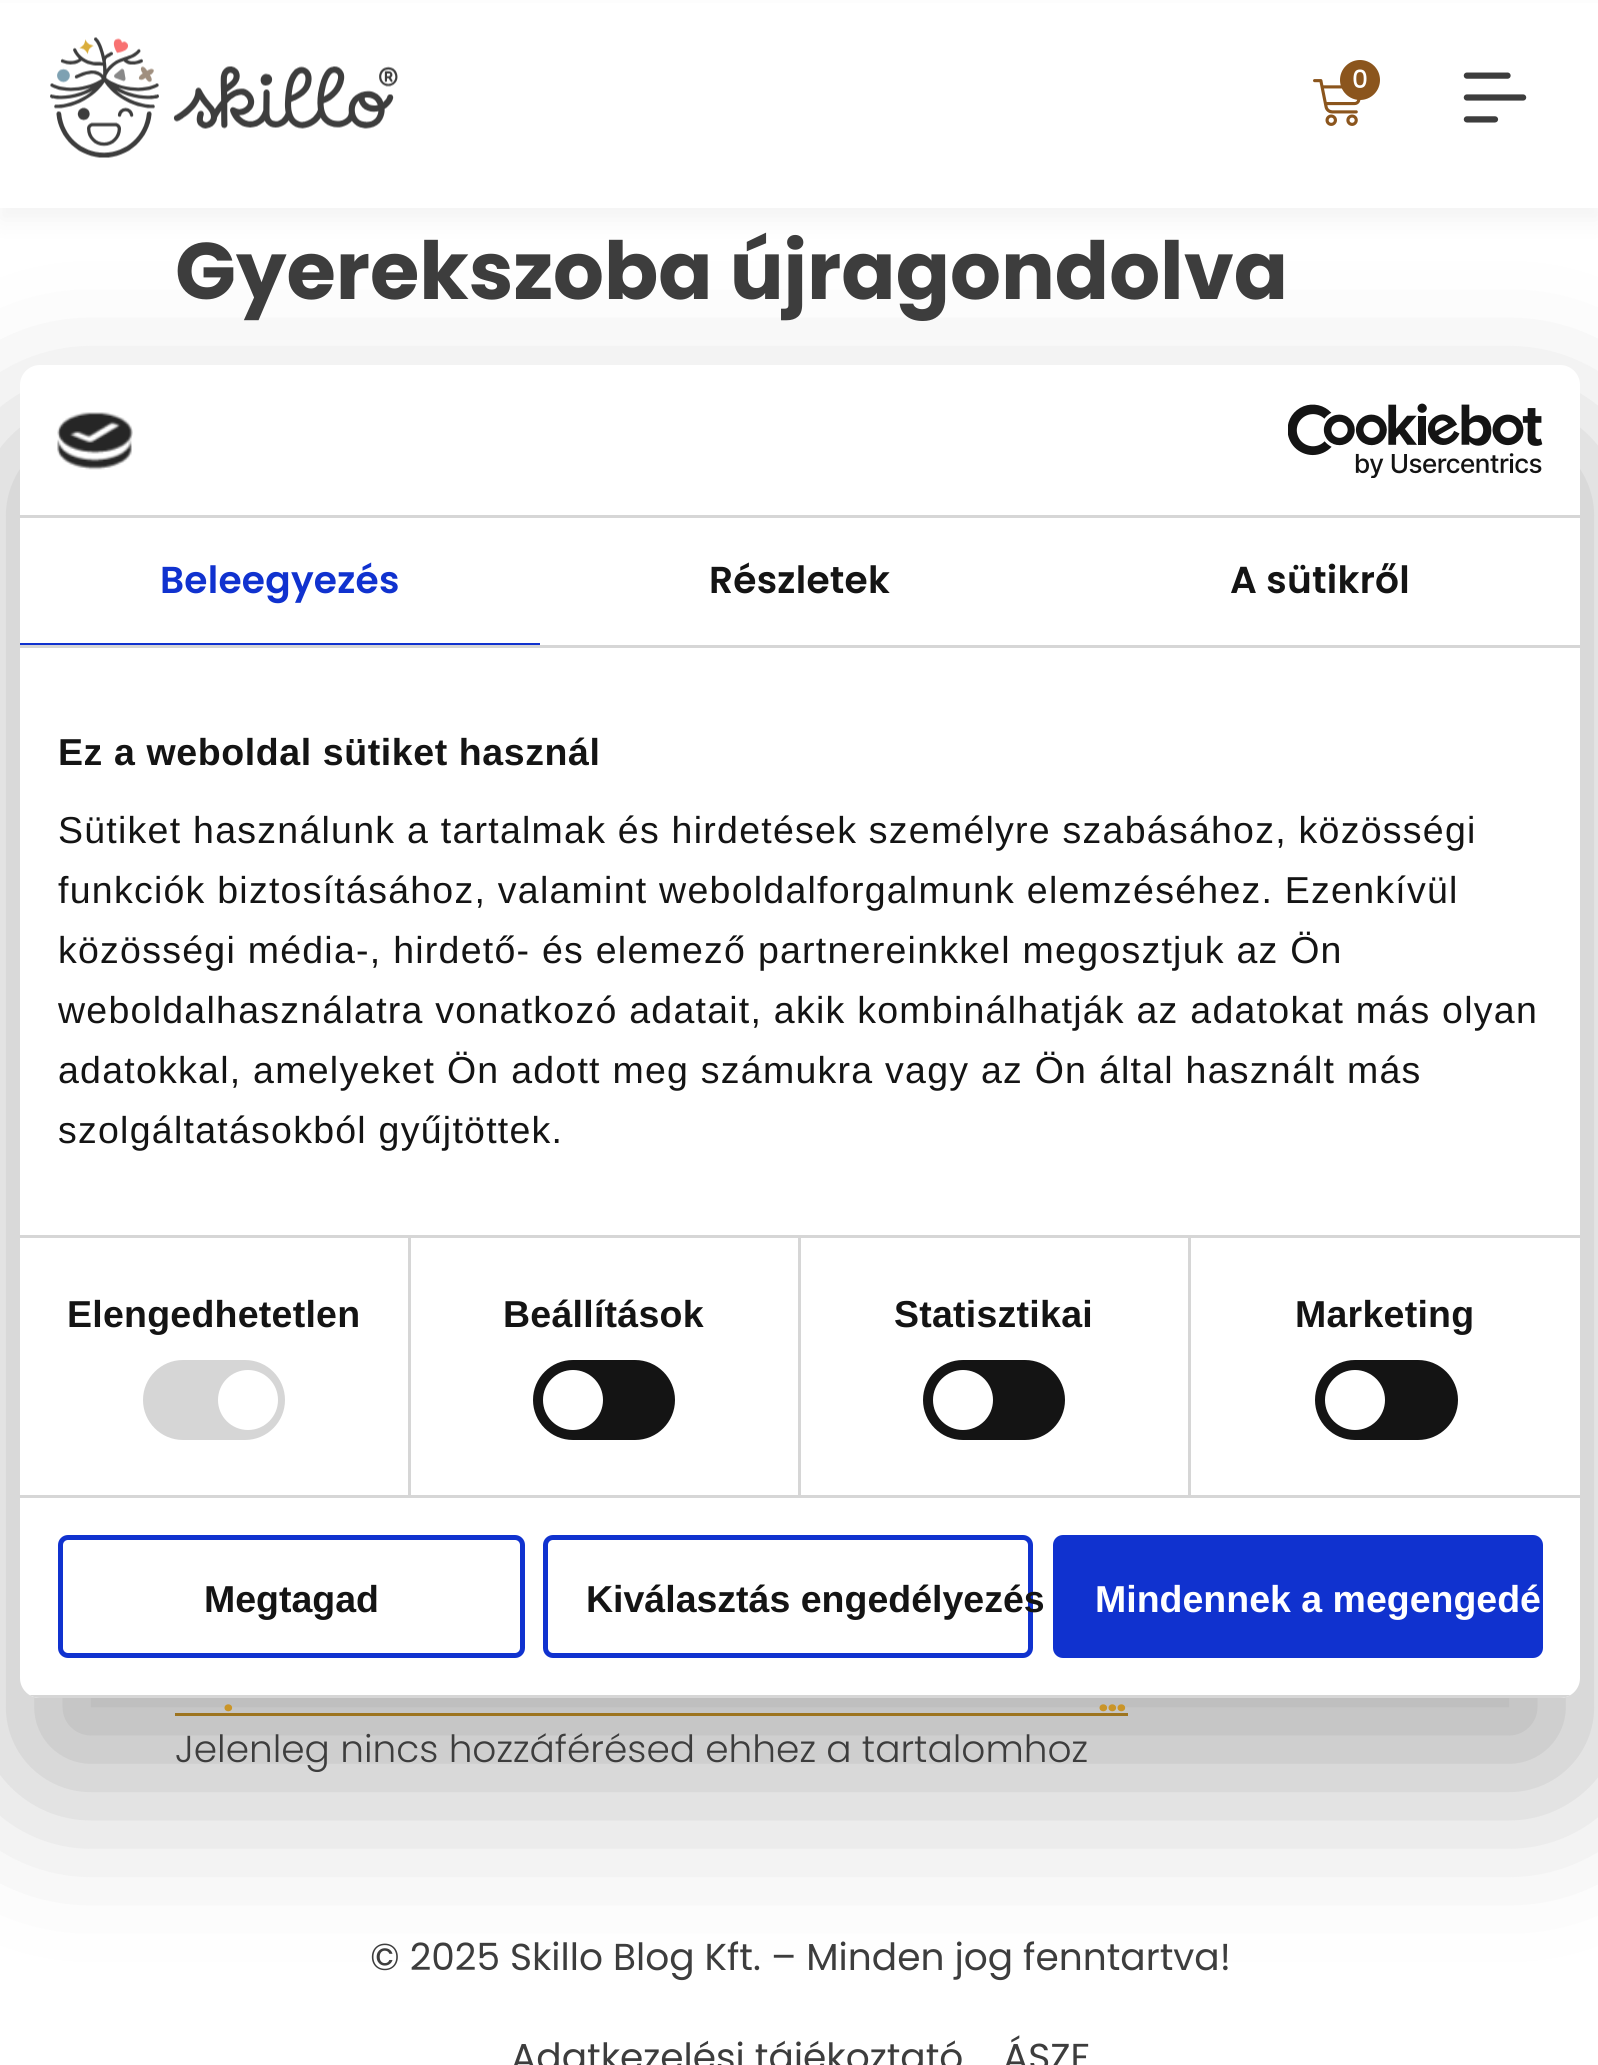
import math
import cairo

surface = cairo.ImageSurface(cairo.FORMAT_RGB24, 1598, 2065)
cr = cairo.Context(surface)
options = cairo.FontOptions()
options.set_hint_metrics(cairo.HINT_METRICS_OFF)
options.set_hint_style(cairo.HINT_STYLE_NONE)
cr.set_font_options(options)
cr.set_miter_limit(4)


def rgb(code):
    cr.set_source_rgb(*(v / 255 for v in bytes.fromhex(code[-6:])))


def tracked(x, y, s, letter, word):
    cr.move_to(x, y)
    for ch in s:
        cr.show_text(ch)
        cr.rel_move_to(letter + word * (ch == ' '), 0)


def rrect(x, y, w, h, r):
    cr.new_sub_path()
    for i, (u, v) in enumerate([(x + w - r, y + h - r), (x + r, y + h - r), (x + r, y + r), (x + w - r, y + r)]):
        cr.arc(u, v, r, i * math.pi / 2, (i + 1) * math.pi / 2)
    cr.close_path()


def soft_shadow(x, y, w, h, r, blur, alpha):
    cr.push_group_with_content(cairo.CONTENT_ALPHA)
    cr.set_operator(cairo.OPERATOR_SOURCE)
    for i in range(15, -16, -2):
        e = blur * i / 6
        if min(w, h) + 2 * e > 0:
            cr.set_source_rgba(0, 0, 0, alpha * math.erfc((i - 1) / 8.5) / 2)
            rrect(x - e, y - e, w + 2 * e, h + 2 * e, max(0, min(r + e + blur * .6, min(w, h) / 2 + e)))
            cr.fill()
    cr.mask(cr.pop_group())


def image(path, x, y, w, h):
    cr.save()
    cr.set_source_surface(cairo.ImageSurface.create_from_png(path), x, y)
    cr.rectangle(x, y, w, h)
    cr.fill()
    cr.restore()


rgb("#ffffff")
cr.paint()
rgb("#000000")
soft_shadow(0, 13, 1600, 207, 0, 12.5, 0.05)
rgb("#ffffff")
cr.rectangle(0, 3, 1598, 205)
cr.fill()
image("img/1.png", 50, 37, 348, 121)
image("img/2.png", 1313, 79, 48, 47)
rgb("#8b551d")
cr.arc(1360, 80, 20, 0, 2 * math.pi)
cr.fill()
image("img/3.png", 1463, 72, 64, 51)
rgb("#ca9528")
cr.rectangle(175, 1713, 953, 3)
cr.fill()
rgb("#000000")
soft_shadow(20, 445, 1560, 1333, 20, 85, 0.3)
rgb("#ffffff")
rrect(20, 365, 1560, 1333, 20)
cr.fill()
rgb("#d6d6d6")
cr.rectangle(20, 515, 1560, 3)
cr.fill()
image("img/4.png", 57, 412, 76, 58)
image("img/5.png", 1288, 403, 255, 75)
for x, y, w, h, color in [
    (20, 645, 1560, 3, "#d6d6d6"),
    (20, 643, 520, 2, "#1032cf"),
    (20, 1235, 1560, 3, "#d6d6d6"),
    (20, 1495, 1560, 3, "#d6d6d6"),
    (408, 1238, 3, 257, "#d6d6d6"),
]:
    rgb(color)
    cr.rectangle(x, y, w, h)
    cr.fill()
rrect(143, 1360, 142, 80, 40)
cr.fill()
rgb("#ffffff")
cr.arc(248, 1400, 30, 0, 2 * math.pi)
cr.fill()
rgb("#d6d6d6")
cr.rectangle(798, 1238, 3, 257)
cr.fill()
rgb("#141414")
rrect(533, 1360, 142, 80, 40)
cr.fill()
rgb("#ffffff")
cr.arc(573, 1400, 30, 0, 2 * math.pi)
cr.fill()
rgb("#d6d6d6")
cr.rectangle(1188, 1238, 3, 257)
cr.fill()
rgb("#141414")
rrect(923, 1360, 142, 80, 40)
cr.fill()
rgb("#ffffff")
cr.arc(963, 1400, 30, 0, 2 * math.pi)
cr.fill()
rgb("#141414")
rrect(1315, 1360, 143, 80, 40)
cr.fill()
rgb("#ffffff")
cr.arc(1355, 1400, 30, 0, 2 * math.pi)
cr.fill()
cr.save()
rrect(20, 365, 1560, 1333, 20)
cr.clip()
rgb("#d6d6d6")
cr.rectangle(29, 1695, 1542, 3)
cr.fill()
cr.restore()
rrect(60.5, 1537.5, 462, 118, 7.5)
rgb("#1032cf")
cr.set_line_width(5)
cr.stroke()
rrect(545.5, 1537.5, 485, 118, 7.5)
cr.stroke()
rrect(1055.5, 1537.5, 485, 118, 7.5)
cr.fill_preserve()
cr.stroke()
cr.select_font_face("Poppins Medium")
cr.set_font_size(25)
rgb("#ffffff")
cr.move_to(1352, 88)
cr.show_text("0")
cr.select_font_face("Poppins", cairo.FONT_SLANT_NORMAL, cairo.FONT_WEIGHT_BOLD)
cr.set_font_size(80)
rgb("#3d3d3d")
cr.move_to(175, 299)
cr.show_text("Gyerekszoba újragondolva")
cr.set_font_size(37.5)
rgb("#ca9528")
cr.move_to(223, 1711)
cr.show_text(".")
cr.move_to(1098, 1711)
cr.show_text("…")
cr.select_font_face("Poppins Light")
rgb("#3d3d3d")
cr.move_to(175, 1762)
cr.show_text("Jelenleg nincs hozzáférésed ehhez a tartalomhoz")
cr.select_font_face("Poppins SemiBold")
rgb("#1032cf")
tracked(160, 593, "Beleegyezés", 0.25, 0)
rgb("#141414")
tracked(709, 593, "Részletek", 0.25, 0)
tracked(1230, 593, "A sütikről", 0.25, 0)
cr.select_font_face("Liberation Sans", cairo.FONT_SLANT_NORMAL, cairo.FONT_WEIGHT_BOLD)
tracked(58, 765, "Ez a weboldal sütiket használ", 0.6, 0)
cr.select_font_face("Liberation Sans")
for x, y, s in [
    (58, 843, "Sütiket használunk a tartalmak és hirdetések személyre szabásához, közösségi"),
    (58, 903, "funkciók biztosításához, valamint weboldalforgalmunk elemzéséhez. Ezenkívül"),
    (58, 963, "közösségi média-, hirdető- és elemező partnereinkkel megosztjuk az Ön"),
    (58, 1023, "weboldalhasználatra vonatkozó adatait, akik kombinálhatják az adatokat más olyan"),
    (58, 1083, "adatokkal, amelyeket Ön adott meg számukra vagy az Ön által használt más"),
    (58, 1143, "szolgáltatásokból gyűjtöttek."),
]:
    tracked(x, y, s, 1.25, 0)
cr.select_font_face("Liberation Sans", cairo.FONT_SLANT_NORMAL, cairo.FONT_WEIGHT_BOLD)
for x, y, s in [
    (67, 1327, "Elengedhetetlen"),
    (503, 1327, "Beállítások"),
    (894, 1327, "Statisztikai"),
    (1295, 1327, "Marketing"),
]:
    tracked(x, y, s, 0.25, 0)
cr.move_to(204, 1612)
cr.show_text("Megtagad")
cr.move_to(586, 1612)
cr.show_text("Kiválasztás engedélyezés")
rgb("#ffffff")
cr.move_to(1095, 1612)
cr.show_text("Mindennek a megengedé")
cr.select_font_face("Poppins")
rgb("#3d3d3d")
for x, y, s in [
    (370, 1970, "© 2025 Skillo Blog Kft. – Minden jog fenntartva!"),
    (511, 2070, "Adatkezelési tájékoztató"),
    (1003, 2070, "ÁSZF"),
]:
    cr.move_to(x, y)
    cr.show_text(s)
surface.write_to_png("page.png")
